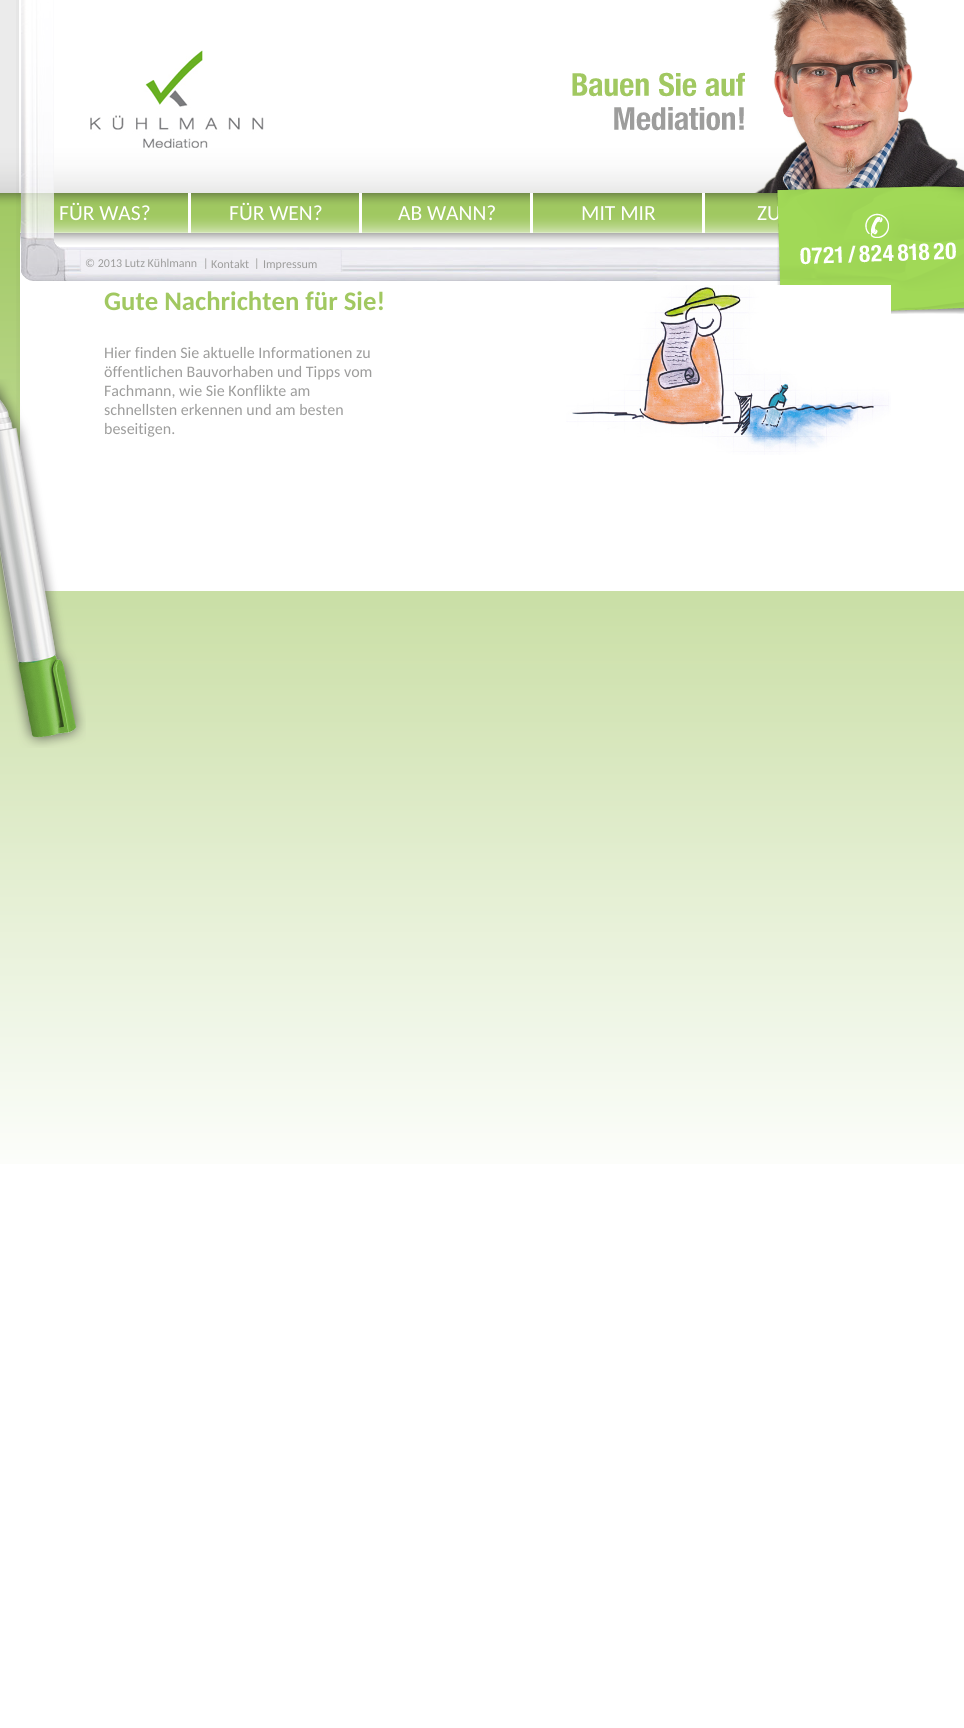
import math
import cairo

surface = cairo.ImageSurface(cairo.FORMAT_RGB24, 964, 1728)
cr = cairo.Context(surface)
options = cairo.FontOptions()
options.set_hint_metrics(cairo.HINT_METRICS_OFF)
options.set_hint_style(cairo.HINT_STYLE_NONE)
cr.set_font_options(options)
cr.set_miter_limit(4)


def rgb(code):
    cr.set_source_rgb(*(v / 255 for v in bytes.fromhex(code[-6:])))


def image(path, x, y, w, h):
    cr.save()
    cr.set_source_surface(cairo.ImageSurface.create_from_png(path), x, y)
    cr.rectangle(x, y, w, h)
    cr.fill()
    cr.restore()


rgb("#ffffff")
cr.paint()
image("img/1.png", 0, 0, 964, 1164)
image("img/2.png", 16, 0, 948, 591)
image("img/3.png", 19, 0, 945, 193)
image("img/4.png", 20, 193, 168, 40)
image("img/4.png", 191, 193, 168, 40)
image("img/4.png", 362, 193, 168, 40)
image("img/5.png", 533, 193, 169, 40)
image("img/6.png", 705, 193, 74, 40)
image("img/9.png", 20, 233, 759, 12)
image("img/11.png", 0, 379, 86, 369)
cr.select_font_face("Carlito")
cr.set_font_size(21.5)
rgb("#ffffff")
for x, y, s in [
    (59, 220, "FÜR WAS?"),
    (229, 220, "FÜR WEN?"),
    (398, 220, "AB WANN?"),
    (581, 220, "MIT MIR"),
    (757, 220, "ZU"),
]:
    cr.move_to(x, y)
    cr.show_text(s)
image("img/7.png", 21, 0, 760, 281)
cr.set_font_size(12)
rgb("#9d9d9c")
for x, y, s in [
    (85, 267, "© 2013 Lutz Kühlmann"),
    (203, 267, "|"),
    (211, 268, "Kontakt"),
    (254, 267, "|"),
    (263, 268, "Impressum"),
]:
    cr.move_to(x, y)
    cr.show_text(s)
image("img/8.png", 776, 185, 188, 129)
cr.select_font_face("Carlito", cairo.FONT_SLANT_NORMAL, cairo.FONT_WEIGHT_BOLD)
cr.set_font_size(26.75)
rgb("#a1c861")
cr.move_to(104, 310)
cr.show_text("Gute Nachrichten für Sie!")
cr.select_font_face("Carlito")
cr.set_font_size(16)
rgb("#9d9d9c")
for x, y, s in [
    (104, 358, "Hier finden Sie aktuelle Informationen zu"),
    (104, 377, "öffentlichen Bauvorhaben und Tipps vom"),
    (104, 396, "Fachmann, wie Sie Konflikte am"),
    (104, 415, "schnellsten erkennen und am besten"),
    (104, 434, "beseitigen."),
]:
    cr.move_to(x, y)
    cr.show_text(s)
image("img/10.png", 566, 285, 325, 170)
surface.write_to_png("page.png")
